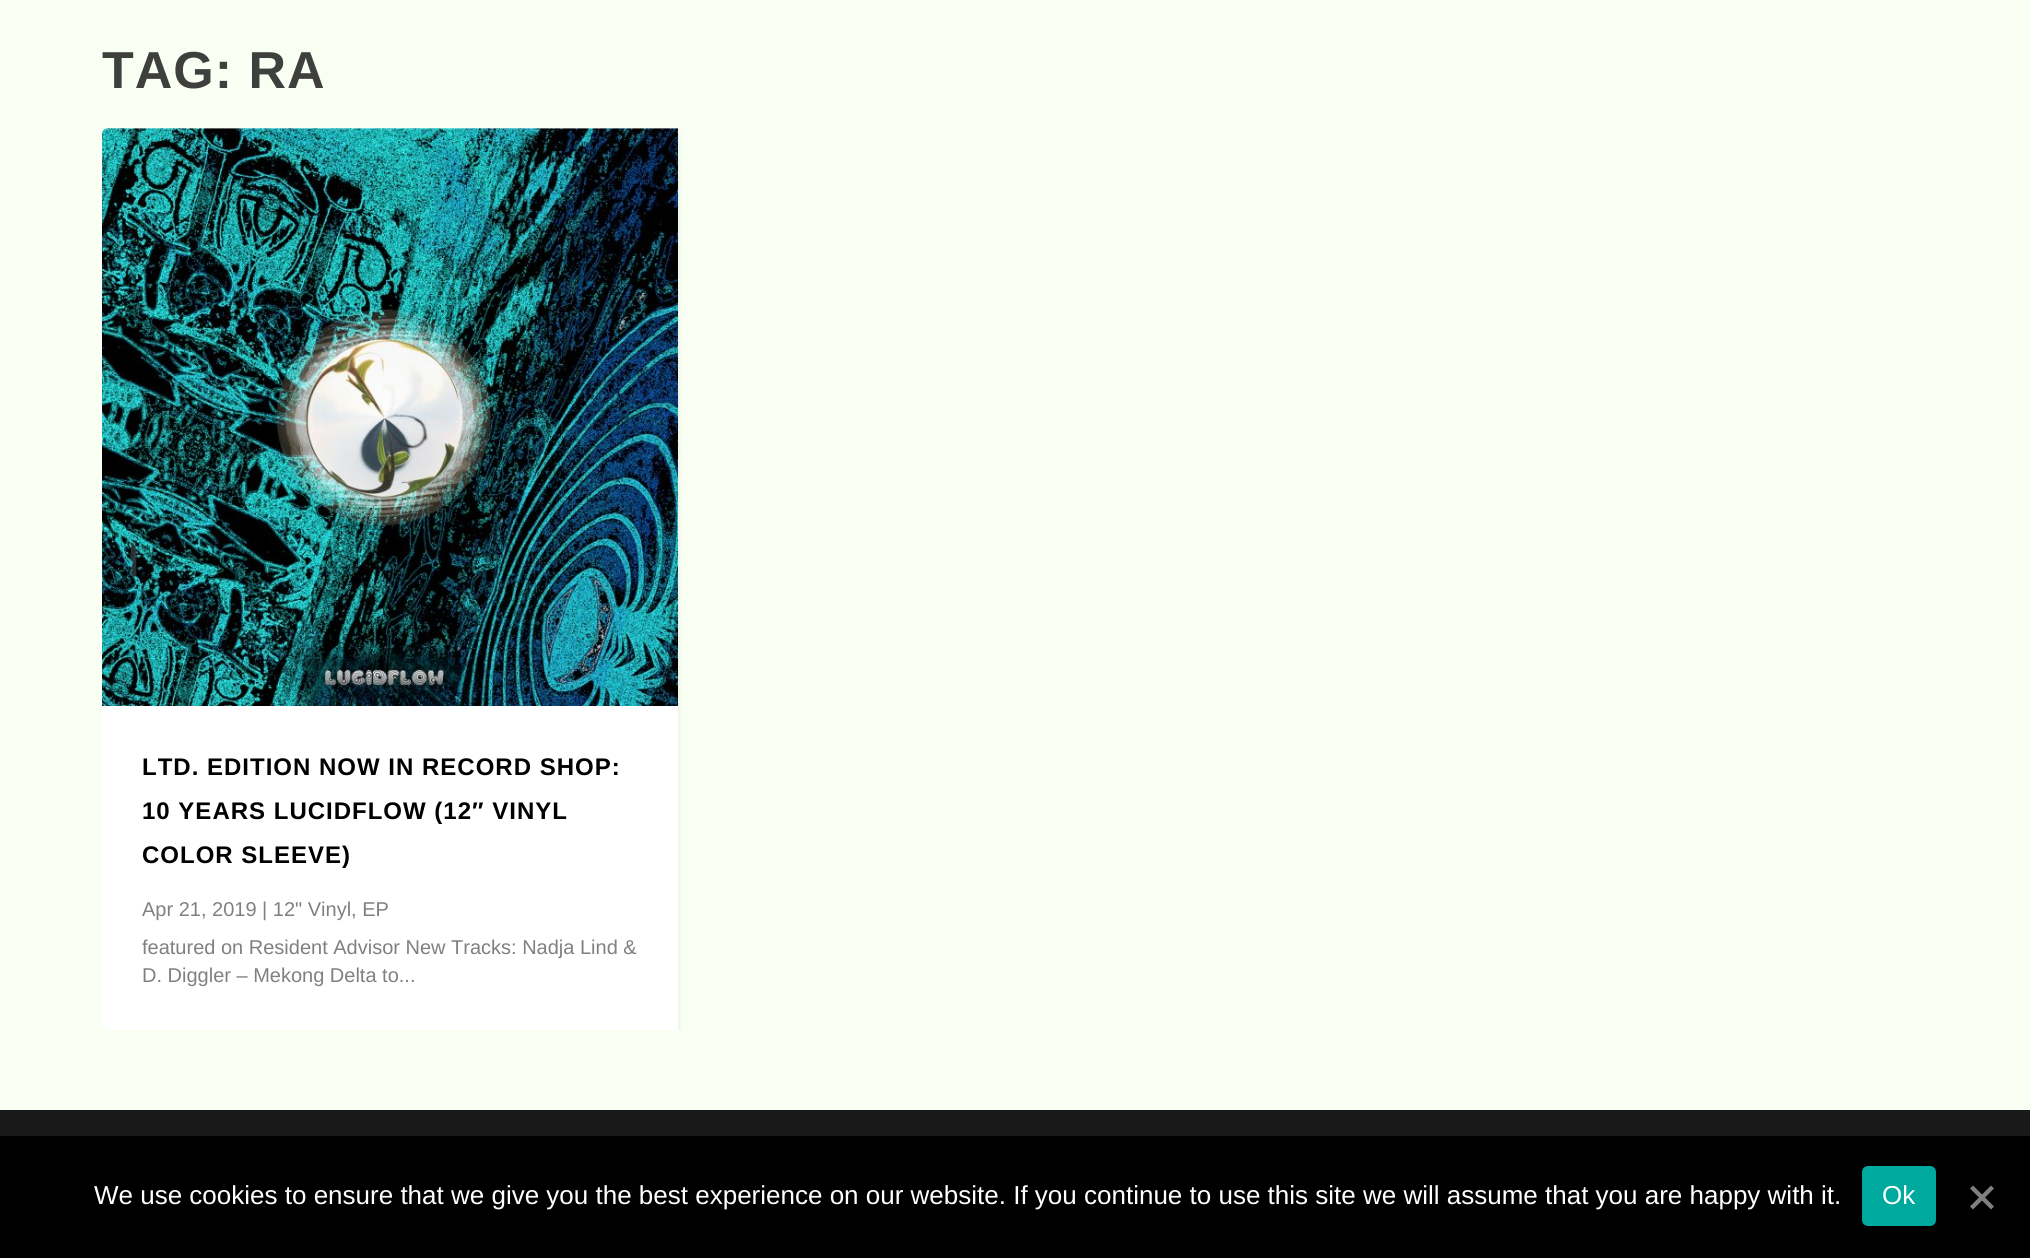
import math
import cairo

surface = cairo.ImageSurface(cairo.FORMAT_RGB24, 2030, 1258)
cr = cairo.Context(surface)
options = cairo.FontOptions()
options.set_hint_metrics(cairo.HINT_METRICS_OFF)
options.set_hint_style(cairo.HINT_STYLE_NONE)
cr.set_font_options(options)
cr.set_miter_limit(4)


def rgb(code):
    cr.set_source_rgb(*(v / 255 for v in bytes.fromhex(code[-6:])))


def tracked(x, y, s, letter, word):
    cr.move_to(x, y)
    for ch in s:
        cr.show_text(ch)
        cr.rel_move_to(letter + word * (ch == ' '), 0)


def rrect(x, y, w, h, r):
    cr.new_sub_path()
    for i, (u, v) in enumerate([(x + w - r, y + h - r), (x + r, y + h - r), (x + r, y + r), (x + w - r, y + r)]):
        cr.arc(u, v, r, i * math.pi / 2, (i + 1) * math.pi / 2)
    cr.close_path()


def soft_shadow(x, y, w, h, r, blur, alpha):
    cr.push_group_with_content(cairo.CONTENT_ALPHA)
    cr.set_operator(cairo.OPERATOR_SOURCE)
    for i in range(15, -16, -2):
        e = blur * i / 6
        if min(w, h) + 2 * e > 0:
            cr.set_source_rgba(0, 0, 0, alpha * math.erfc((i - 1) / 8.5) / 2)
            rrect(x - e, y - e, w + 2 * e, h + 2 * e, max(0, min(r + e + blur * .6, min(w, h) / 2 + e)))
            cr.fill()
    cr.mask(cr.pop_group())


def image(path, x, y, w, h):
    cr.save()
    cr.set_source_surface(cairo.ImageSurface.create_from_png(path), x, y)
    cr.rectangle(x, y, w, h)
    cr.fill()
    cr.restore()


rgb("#fafff4")
cr.paint()
cr.save()
rrect(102, 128, 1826, 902, 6)
cr.clip()
rgb("#000000")
soft_shadow(102, 130, 576, 942, 6, 3, 0.1)
cr.restore()
rgb("#ffffff")
cr.new_path()
cr.move_to(108, 128)
cr.line_to(672, 128)
cr.curve_to(675.5, 128, 678, 130.5, 678, 134)
cr.line_to(678, 1030)
cr.line_to(108, 1030)
cr.curve_to(104.5, 1030, 102, 1027.5, 102, 1024)
cr.line_to(102, 134)
cr.curve_to(102, 130.5, 104.5, 128, 108, 128)
cr.close_path()
cr.fill()
image("img/1.png", 102, 128, 576, 578)
rgb("#191919")
cr.rectangle(0, 1110, 2030, 26)
cr.fill()
rgb("#000000")
cr.rectangle(0, 1136, 2030, 122)
cr.fill()
rgb("#00a99d")
rrect(1862, 1166, 74, 60, 6)
cr.fill()
rgb("#808080")
cr.new_path()
cr.move_to(1991, 1185.5)
cr.line_to(1994, 1188.5)
cr.line_to(1973, 1209.5)
cr.line_to(1970, 1206.5)
cr.close_path()
cr.fill()
cr.new_path()
cr.move_to(1970, 1188.5)
cr.line_to(1973, 1185.5)
cr.line_to(1994, 1206.5)
cr.line_to(1991, 1209.5)
cr.close_path()
cr.fill()
cr.select_font_face("Liberation Sans", cairo.FONT_SLANT_NORMAL, cairo.FONT_WEIGHT_BOLD)
cr.set_font_size(52)
rgb("#3f403d")
tracked(102, 88, "TAG: RA", 1, 0)
cr.set_font_size(24)
rgb("#000000")
for x, y, s in [
    (142, 775, "LTD. EDITION NOW IN RECORD SHOP:"),
    (142, 819, "10 YEARS LUCIDFLOW (12″ VINYL"),
    (142, 863, "COLOR SLEEVE)"),
]:
    tracked(x, y, s, 1, 0)
cr.select_font_face("Liberation Sans")
cr.set_font_size(20)
rgb("#808080")
for x, y, s in [
    (142, 916, "Apr 21, 2019 | 12\" Vinyl, EP"),
    (142, 954, "featured on Resident Advisor New Tracks: Nadja Lind &"),
    (142, 982, "D. Diggler – Mekong Delta to..."),
]:
    cr.move_to(x, y)
    cr.show_text(s)
cr.set_font_size(26)
rgb("#ffffff")
cr.move_to(94, 1204)
cr.show_text("We use cookies to ensure that we give you the best experience on our website. If you continue to use this site we will assume that you are happy with it.")
cr.move_to(1882, 1204)
cr.show_text("Ok")
surface.write_to_png("page.png")
